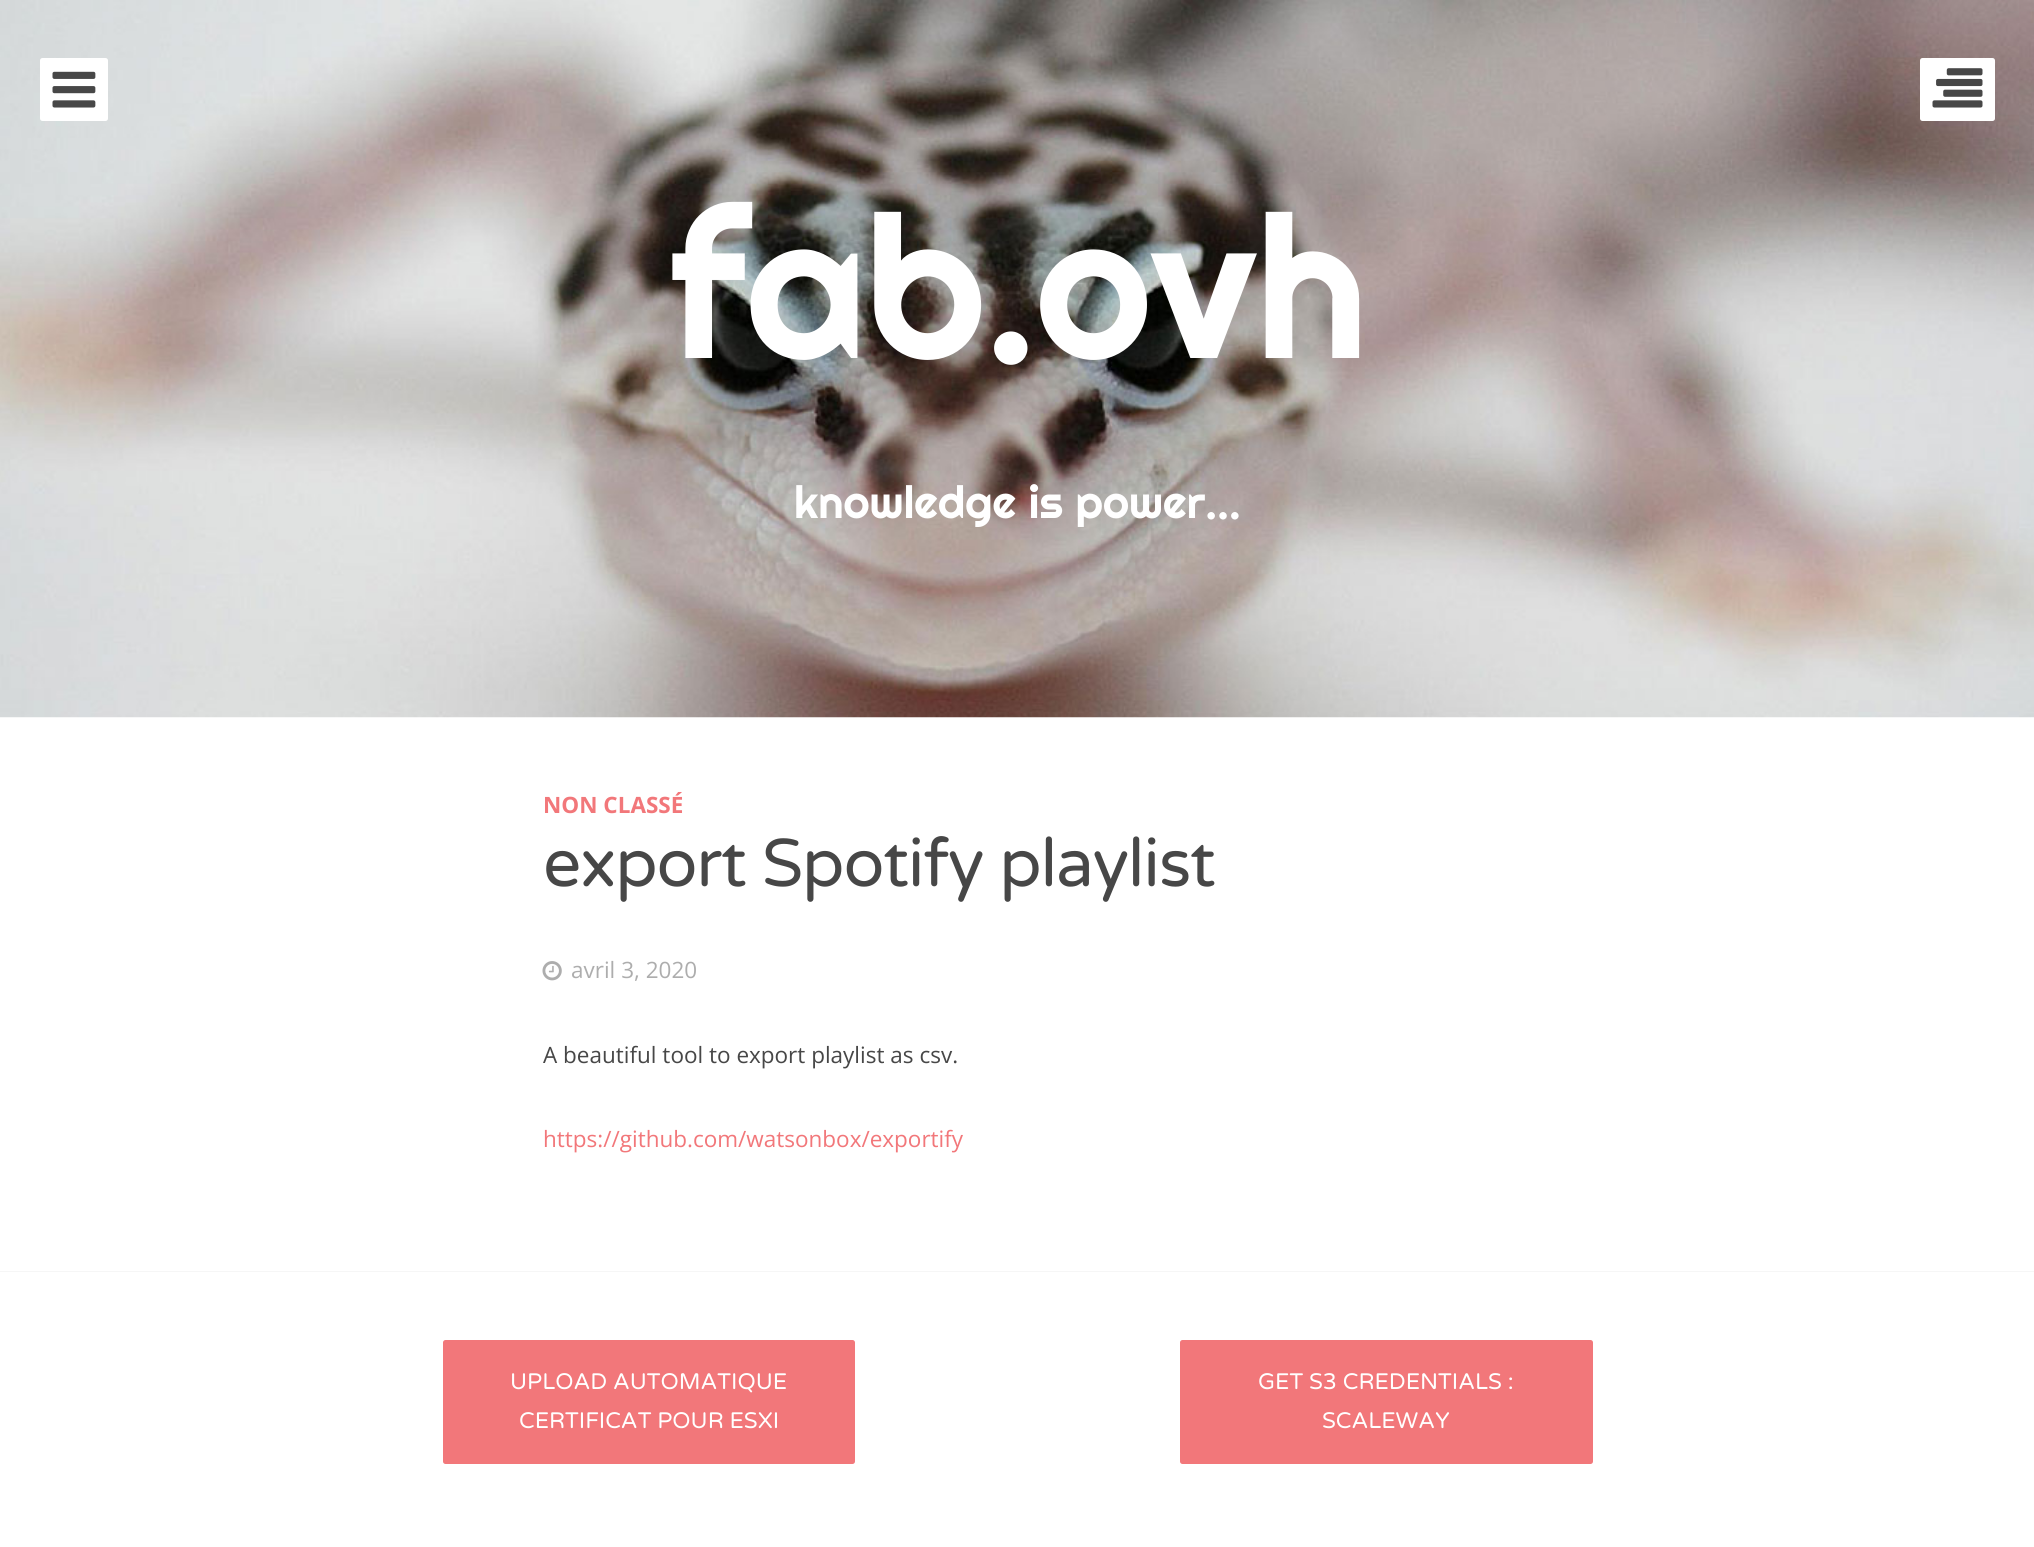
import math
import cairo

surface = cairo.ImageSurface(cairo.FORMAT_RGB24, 2034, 1547)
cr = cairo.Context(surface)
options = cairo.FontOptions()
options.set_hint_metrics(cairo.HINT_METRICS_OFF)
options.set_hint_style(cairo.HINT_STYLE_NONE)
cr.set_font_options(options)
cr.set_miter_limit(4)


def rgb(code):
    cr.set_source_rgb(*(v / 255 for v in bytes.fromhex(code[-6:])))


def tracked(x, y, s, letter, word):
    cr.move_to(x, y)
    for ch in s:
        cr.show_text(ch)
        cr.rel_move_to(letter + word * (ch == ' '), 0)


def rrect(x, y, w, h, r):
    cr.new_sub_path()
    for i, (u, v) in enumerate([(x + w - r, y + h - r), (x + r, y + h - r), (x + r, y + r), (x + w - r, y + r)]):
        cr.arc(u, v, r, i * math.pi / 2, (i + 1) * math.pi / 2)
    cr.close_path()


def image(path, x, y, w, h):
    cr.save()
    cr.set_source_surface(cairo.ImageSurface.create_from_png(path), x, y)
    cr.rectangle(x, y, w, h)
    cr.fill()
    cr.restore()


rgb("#ffffff")
cr.paint()
image("img/3.png", 0, 0, 2034, 718)
rgb("#ffffff")
rrect(40, 58, 68, 63, 2.5)
cr.fill()
image("img/1.png", 52, 71, 44, 37)
rrect(1920, 58, 75, 63, 2.5)
cr.fill()
image("img/2.png", 1932, 68, 51, 40)
rgb("#f6f6f6")
cr.rectangle(0, 1271, 2034, 1)
cr.fill()
image("img/4.png", 542, 961, 20, 20)
rgb("#f2777a")
rrect(443, 1340, 412, 124, 2.5)
cr.fill()
rrect(1180, 1340, 413, 124, 2.5)
cr.fill()
cr.select_font_face("Righteous")
cr.set_font_size(200)
rgb("#ffffff")
tracked(668, 358, "fab.ovh", -1.25, 0)
cr.set_font_size(45)
cr.move_to(794, 518)
cr.show_text("knowledge is power…")
cr.select_font_face("Open Sans", cairo.FONT_SLANT_NORMAL, cairo.FONT_WEIGHT_BOLD)
cr.set_font_size(22.5)
rgb("#f2777a")
cr.move_to(543, 813)
cr.show_text("NON CLASSÉ")
cr.select_font_face("Varela Round")
cr.set_font_size(67.5)
rgb("#474747")
tracked(543, 886, "export Spotify playlist", -1.25, 0)
cr.select_font_face("Open Sans")
cr.set_font_size(22.5)
rgb("#adadad")
cr.move_to(571, 978)
cr.show_text("avril 3, 2020")
rgb("#474747")
cr.move_to(543, 1063)
cr.show_text("A beautiful tool to export playlist as csv.")
rgb("#f2777a")
cr.move_to(543, 1147)
cr.show_text("https://github.com/watsonbox/exportify")
cr.select_font_face("Varela Round")
rgb("#ffffff")
for x, y, s in [
    (510, 1389, "UPLOAD AUTOMATIQUE"),
    (519, 1428, "CERTIFICAT POUR ESXI"),
    (1258, 1389, "GET S3 CREDENTIALS :"),
    (1322, 1428, "SCALEWAY"),
]:
    cr.move_to(x, y)
    cr.show_text(s)
surface.write_to_png("page.png")
